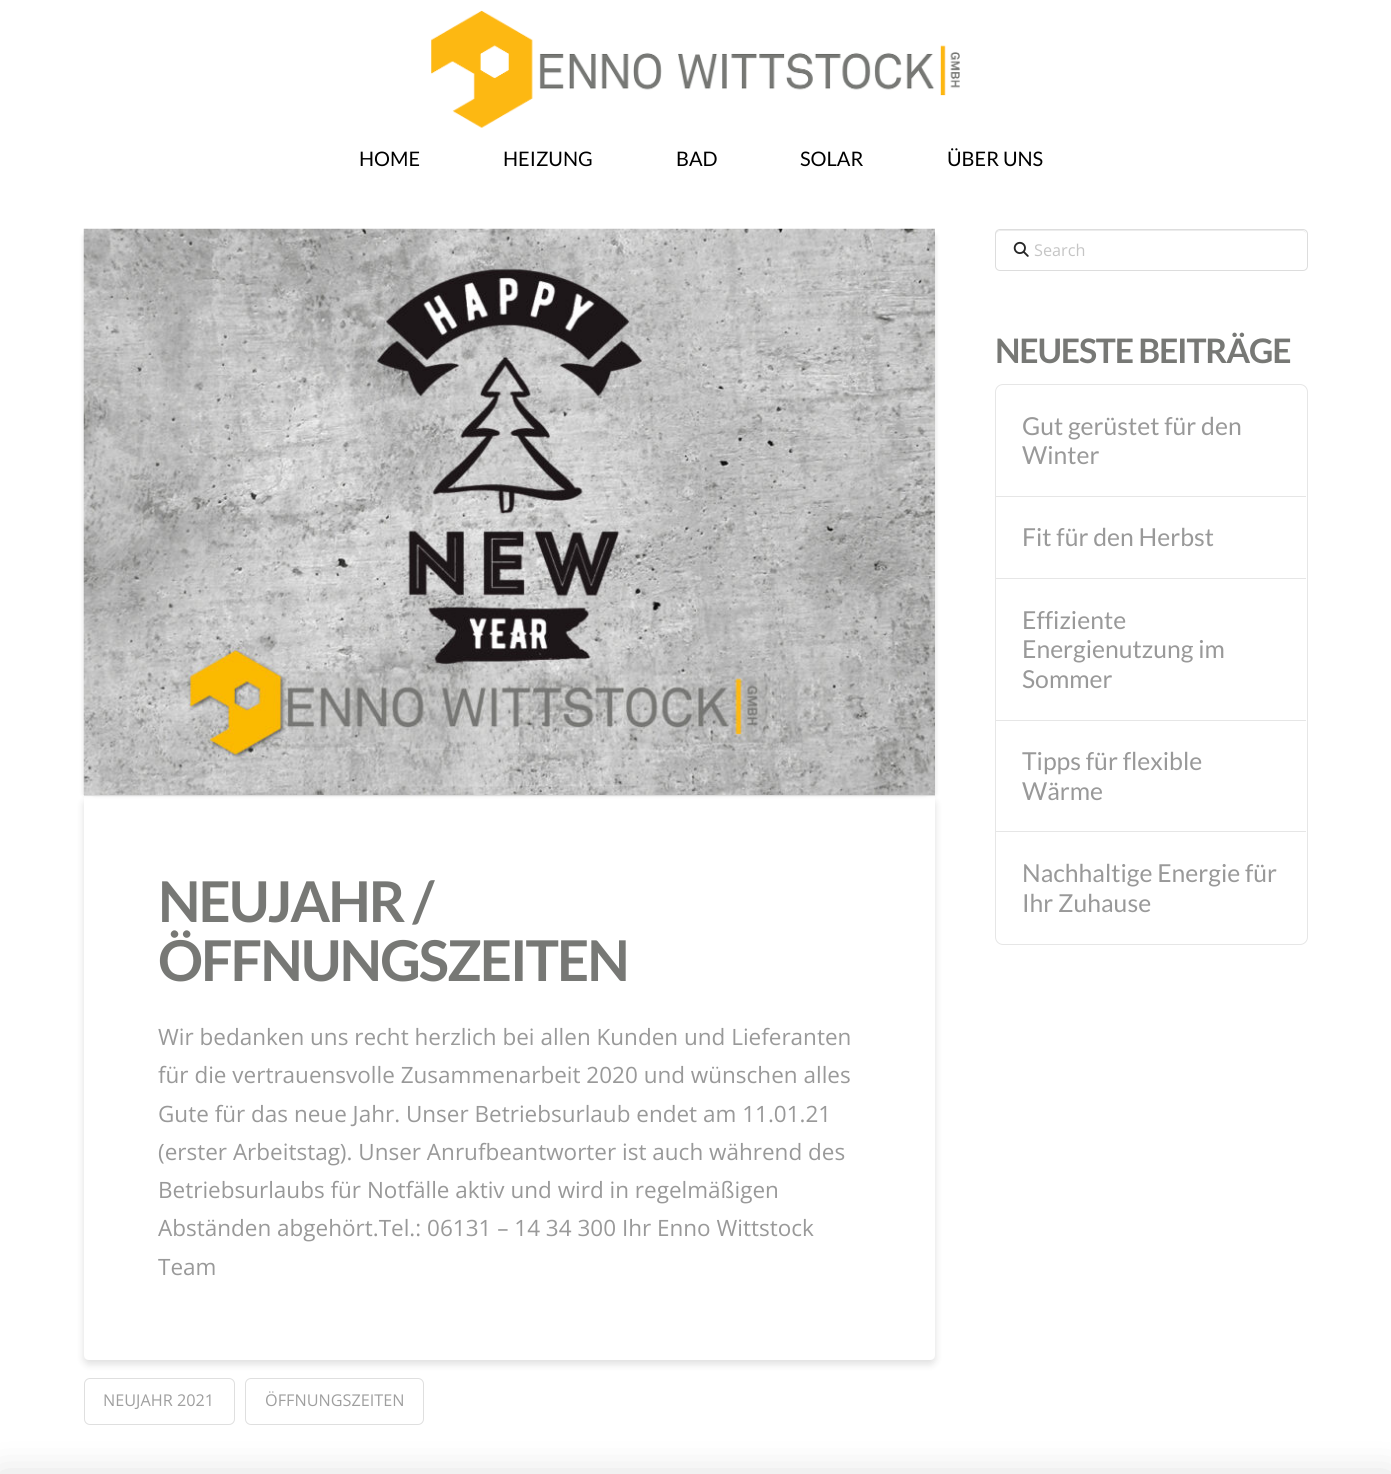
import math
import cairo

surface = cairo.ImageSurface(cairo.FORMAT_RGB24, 1391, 1474)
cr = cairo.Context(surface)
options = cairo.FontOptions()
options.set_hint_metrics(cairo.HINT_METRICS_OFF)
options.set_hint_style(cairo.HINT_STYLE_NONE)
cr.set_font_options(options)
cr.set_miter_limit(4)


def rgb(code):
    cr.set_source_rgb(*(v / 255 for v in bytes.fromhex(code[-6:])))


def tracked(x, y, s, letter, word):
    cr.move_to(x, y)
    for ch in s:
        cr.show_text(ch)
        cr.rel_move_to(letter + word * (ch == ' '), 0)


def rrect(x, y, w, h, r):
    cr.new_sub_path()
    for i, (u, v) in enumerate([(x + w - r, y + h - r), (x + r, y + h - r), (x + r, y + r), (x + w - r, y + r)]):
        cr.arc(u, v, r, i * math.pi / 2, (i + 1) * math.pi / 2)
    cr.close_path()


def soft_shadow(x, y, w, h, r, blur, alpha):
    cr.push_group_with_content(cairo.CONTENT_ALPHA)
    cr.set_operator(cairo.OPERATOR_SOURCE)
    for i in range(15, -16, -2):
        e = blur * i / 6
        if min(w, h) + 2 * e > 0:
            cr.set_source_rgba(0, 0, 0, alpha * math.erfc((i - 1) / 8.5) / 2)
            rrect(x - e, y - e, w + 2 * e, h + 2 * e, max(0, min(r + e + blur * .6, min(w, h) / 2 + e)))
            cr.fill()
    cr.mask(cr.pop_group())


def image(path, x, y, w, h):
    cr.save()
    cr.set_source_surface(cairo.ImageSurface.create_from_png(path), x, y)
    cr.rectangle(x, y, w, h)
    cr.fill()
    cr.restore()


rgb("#ffffff")
cr.paint()
image("img/1.png", 431, 10, 529, 118)
rgb("#ececec")
cr.new_path()
cr.move_to(1000, 231)
cr.line_to(1302, 231)
cr.curve_to(1305, 231, 1306, 233, 1306, 235)
cr.curve_to(1306, 232, 1305, 230, 1302, 230)
cr.line_to(1000, 230)
cr.line_to(997, 231)
cr.curve_to(996, 232, 996, 234, 996, 235)
cr.curve_to(996, 233, 998, 231, 1000, 231)
cr.close_path()
cr.fill()
rrect(995.5, 229.5, 312, 41, 4.5)
rgb("#dddddd")
cr.set_line_width(1)
cr.stroke()
image("img/2.png", 1013, 241, 16, 16)
rrect(995.5, 384.5, 312, 560, 7.5)
rgb("#e6e6e6")
cr.stroke()
for x, y, w, h, color in [
    (996, 496, 310, 1, "#e6e6e6"),
    (996, 578, 310, 1, "#e6e6e6"),
    (996, 720, 310, 1, "#e6e6e6"),
    (996, 831, 310, 1, "#e6e6e6"),
]:
    rgb(color)
    cr.rectangle(x, y, w, h)
    cr.fill()
rgb("#000000")
soft_shadow(84, 800, 851, 564, 5, 4, 0.13)
rgb("#ffffff")
cr.new_path()
cr.move_to(84, 796)
cr.line_to(935, 796)
cr.line_to(935, 1355)
cr.curve_to(935, 1358, 933, 1360, 930, 1360)
cr.line_to(89, 1360)
cr.curve_to(86, 1360, 84, 1358, 84, 1355)
cr.close_path()
cr.fill()
rgb("#000000")
soft_shadow(84, 236, 841, 558, 0, 2.5, 0.13)
soft_shadow(94, 236, 841, 558, 0, 2.5, 0.13)
rgb("#dddddd")
cr.rectangle(84, 795, 851, 1)
cr.fill()
image("img/3.png", 83, 228, 852, 567)
rrect(84.5, 1378.5, 150, 46, 5.5)
rgb("#dfdfdf")
cr.stroke()
rrect(245.5, 1378.5, 178, 46, 5.5)
cr.stroke()
rgb("#000000")
soft_shadow(0, 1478, 1391, 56, 0, 20, 0.15)
cr.select_font_face("Lato")
cr.set_font_size(20)
rgb("#000000")
for x, y, s in [
    (359, 166, "HOME"),
    (503, 166, "HEIZUNG"),
    (676, 166, "BAD"),
    (800, 166, "SOLAR"),
    (947, 166, "ÜBER UNS"),
]:
    cr.move_to(x, y)
    cr.show_text(s)
cr.select_font_face("Open Sans")
cr.set_font_size(16.25)
rgb("#c5c5c5")
cr.move_to(1034, 256)
cr.show_text("Search")
cr.select_font_face("Lato", cairo.FONT_SLANT_NORMAL, cairo.FONT_WEIGHT_BOLD)
cr.set_font_size(33.75)
rgb("#777875")
tracked(995, 363, "NEUESTE BEITRÄGE", -1.2, 0)
cr.select_font_face("Lato")
cr.set_font_size(24.75)
rgb("#999999")
for x, y, s in [
    (1022, 435, "Gut gerüstet für den"),
    (1022, 464, "Winter"),
    (1022, 546, "Fit für den Herbst"),
    (1022, 629, "Effiziente"),
    (1022, 658, "Energienutzung im"),
    (1022, 688, "Sommer"),
    (1022, 770, "Tipps für flexible"),
    (1022, 800, "Wärme"),
    (1022, 882, "Nachhaltige Energie für"),
    (1022, 912, "Ihr Zuhause"),
]:
    cr.move_to(x, y)
    cr.show_text(s)
cr.select_font_face("Lato", cairo.FONT_SLANT_NORMAL, cairo.FONT_WEIGHT_BOLD)
cr.set_font_size(56.25)
rgb("#777875")
tracked(158, 922, "NEUJAHR /", -2, 0)
tracked(158, 981, "ÖFFNUNGSZEITEN", -2, 0)
cr.select_font_face("Open Sans")
cr.set_font_size(22.5)
rgb("#999999")
for x, y, s in [
    (158, 1045, "Wir bedanken uns recht herzlich bei allen Kunden und Lieferanten"),
    (158, 1083, "für die vertrauensvolle Zusammenarbeit 2020 und wünschen alles"),
    (158, 1122, "Gute für das neue Jahr. Unser Betriebsurlaub endet am 11.01.21"),
    (158, 1160, "(erster Arbeitstag). Unser Anrufbeantworter ist auch während des"),
    (158, 1198, "Betriebsurlaubs für Notfälle aktiv und wird in regelmäßigen"),
    (158, 1236, "Abständen abgehört.Tel.: 06131 – 14 34 300 Ihr Enno Wittstock"),
    (158, 1275, "Team"),
]:
    cr.move_to(x, y)
    cr.show_text(s)
cr.set_font_size(16.25)
rgb("#9f9f9f")
cr.move_to(103, 1406)
cr.show_text("NEUJAHR 2021")
cr.move_to(265, 1406)
cr.show_text("ÖFFNUNGSZEITEN")
surface.write_to_png("page.png")
